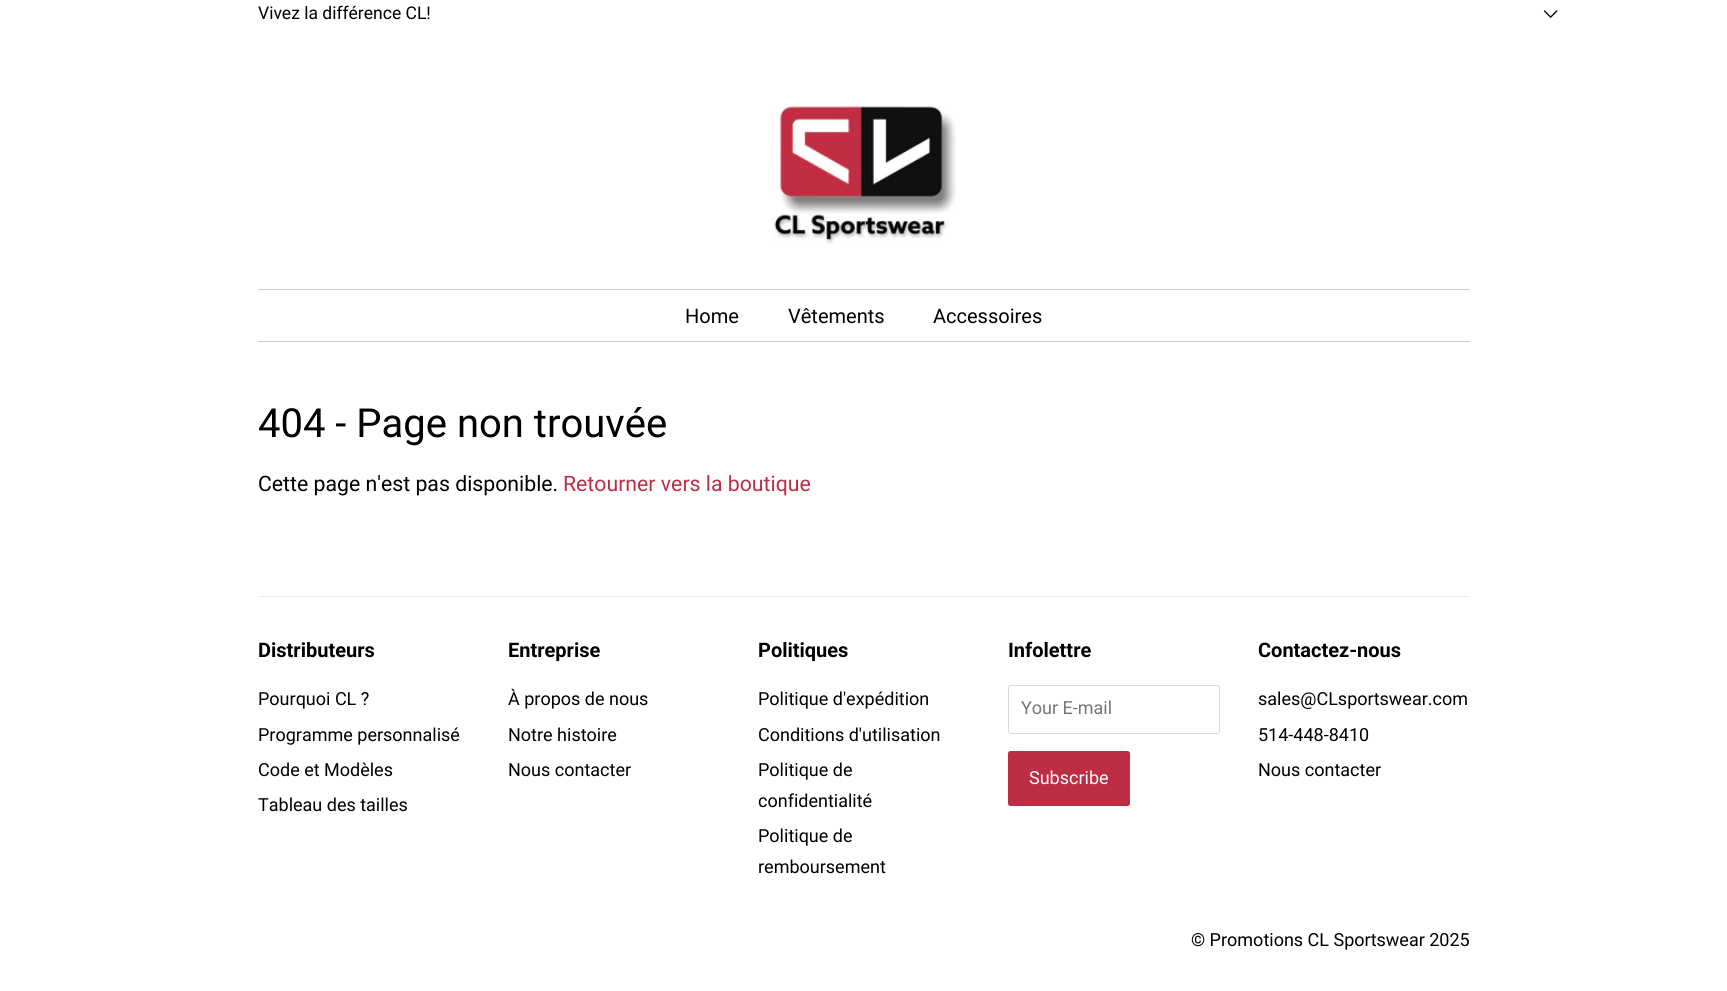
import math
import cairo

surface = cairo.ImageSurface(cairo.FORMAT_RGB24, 1727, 991)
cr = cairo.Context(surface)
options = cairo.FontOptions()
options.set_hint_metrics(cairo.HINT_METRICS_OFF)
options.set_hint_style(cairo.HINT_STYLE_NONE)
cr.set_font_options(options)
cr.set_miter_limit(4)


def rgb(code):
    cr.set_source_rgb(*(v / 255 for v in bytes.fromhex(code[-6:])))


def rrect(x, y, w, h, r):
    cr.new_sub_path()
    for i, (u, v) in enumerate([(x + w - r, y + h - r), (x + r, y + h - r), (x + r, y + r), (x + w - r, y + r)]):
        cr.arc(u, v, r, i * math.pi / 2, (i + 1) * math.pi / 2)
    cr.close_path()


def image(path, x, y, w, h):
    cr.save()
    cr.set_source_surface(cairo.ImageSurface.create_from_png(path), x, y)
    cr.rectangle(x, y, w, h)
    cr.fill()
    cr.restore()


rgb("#ffffff")
cr.paint()
image("img/1.png", 1543, 10, 15, 8)
image("img/2.png", 773, 105, 183, 139)
for x, y, w, h, color in [
    (258, 289, 1212, 1, "#cccccc"),
    (258, 341, 1212, 1, "#cccccc"),
    (258, 596, 1212, 1, "#ebebeb"),
]:
    rgb(color)
    cr.rectangle(x, y, w, h)
    cr.fill()
rrect(1008.5, 685.5, 211, 48, 2)
rgb("#d9d9d9")
cr.set_line_width(1)
cr.stroke()
rgb("#bd2e44")
rrect(1008, 751, 122, 55, 2.5)
cr.fill()
cr.select_font_face("Roboto")
cr.set_font_size(17.5)
rgb("#000000")
cr.move_to(258, 19)
cr.show_text("Vivez la différence CL!")
cr.set_font_size(20)
for x, y, s in [
    (685, 323, "Home"),
    (788, 323, "Vêtements"),
    (933, 323, "Accessoires"),
]:
    cr.move_to(x, y)
    cr.show_text(s)
cr.set_font_size(40)
cr.move_to(258, 437)
cr.show_text("404 - Page non trouvée")
cr.set_font_size(21.25)
cr.move_to(258, 491)
cr.show_text("Cette page n'est pas disponible.")
rgb("#bd2e44")
cr.move_to(563, 491)
cr.show_text("Retourner vers la boutique")
cr.select_font_face("Roboto", cairo.FONT_SLANT_NORMAL, cairo.FONT_WEIGHT_BOLD)
cr.set_font_size(20)
rgb("#000000")
cr.move_to(258, 657)
cr.show_text("Distributeurs")
cr.select_font_face("Roboto")
cr.set_font_size(18)
for x, y, s in [
    (258, 705, "Pourquoi CL ?"),
    (258, 741, "Programme personnalisé"),
    (258, 776, "Code et Modèles"),
    (258, 811, "Tableau des tailles"),
]:
    cr.move_to(x, y)
    cr.show_text(s)
cr.select_font_face("Roboto", cairo.FONT_SLANT_NORMAL, cairo.FONT_WEIGHT_BOLD)
cr.set_font_size(20)
cr.move_to(508, 657)
cr.show_text("Entreprise")
cr.select_font_face("Roboto")
cr.set_font_size(18)
for x, y, s in [
    (508, 705, "À propos de nous"),
    (508, 741, "Notre histoire"),
    (508, 776, "Nous contacter"),
]:
    cr.move_to(x, y)
    cr.show_text(s)
cr.select_font_face("Roboto", cairo.FONT_SLANT_NORMAL, cairo.FONT_WEIGHT_BOLD)
cr.set_font_size(20)
cr.move_to(758, 657)
cr.show_text("Politiques")
cr.select_font_face("Roboto")
cr.set_font_size(18)
for x, y, s in [
    (758, 705, "Politique d'expédition"),
    (758, 741, "Conditions d'utilisation"),
    (758, 776, "Politique de"),
    (758, 807, "confidentialité"),
    (758, 842, "Politique de"),
    (758, 873, "remboursement"),
]:
    cr.move_to(x, y)
    cr.show_text(s)
cr.select_font_face("Roboto", cairo.FONT_SLANT_NORMAL, cairo.FONT_WEIGHT_BOLD)
cr.set_font_size(20)
cr.move_to(1008, 657)
cr.show_text("Infolettre")
cr.select_font_face("Roboto")
cr.set_font_size(18)
rgb("#757575")
cr.move_to(1021, 714)
cr.show_text("Your E-mail")
rgb("#ffffff")
cr.move_to(1029, 784)
cr.show_text("Subscribe")
cr.select_font_face("Roboto", cairo.FONT_SLANT_NORMAL, cairo.FONT_WEIGHT_BOLD)
cr.set_font_size(20)
rgb("#000000")
cr.move_to(1258, 657)
cr.show_text("Contactez-nous")
cr.select_font_face("Roboto")
cr.set_font_size(18)
for x, y, s in [
    (1258, 705, "sales@CLsportswear.com"),
    (1258, 741, "514-448-8410"),
    (1258, 776, "Nous contacter"),
    (1191, 946, "© Promotions CL Sportswear 2025"),
]:
    cr.move_to(x, y)
    cr.show_text(s)
surface.write_to_png("page.png")
